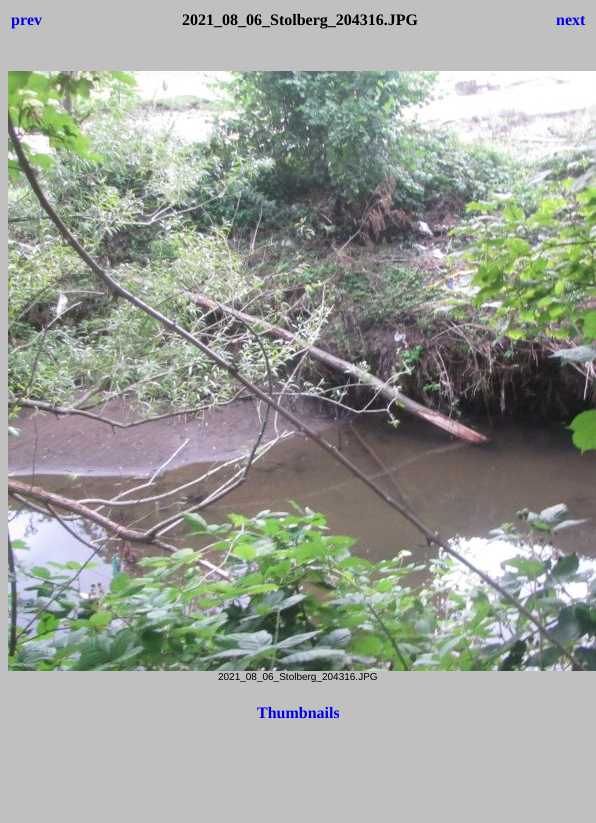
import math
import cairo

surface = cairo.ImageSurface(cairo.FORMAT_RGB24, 596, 823)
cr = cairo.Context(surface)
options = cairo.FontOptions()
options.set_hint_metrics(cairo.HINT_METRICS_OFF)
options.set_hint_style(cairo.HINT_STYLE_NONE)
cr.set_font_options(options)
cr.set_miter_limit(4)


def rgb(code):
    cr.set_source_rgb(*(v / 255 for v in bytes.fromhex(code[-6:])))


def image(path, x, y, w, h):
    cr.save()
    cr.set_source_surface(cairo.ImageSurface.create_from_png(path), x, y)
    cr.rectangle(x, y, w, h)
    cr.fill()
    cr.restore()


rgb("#c0c0c0")
cr.paint()
image("img/1.png", 8, 71, 588, 600)
cr.select_font_face("Liberation Serif", cairo.FONT_SLANT_NORMAL, cairo.FONT_WEIGHT_BOLD)
cr.set_font_size(16)
rgb("#0000ee")
cr.move_to(11, 25)
cr.show_text("prev")
rgb("#000000")
cr.move_to(182, 25)
cr.show_text("2021_08_06_Stolberg_204316.JPG")
rgb("#0000ee")
cr.move_to(556, 25)
cr.show_text("next")
cr.select_font_face("Liberation Sans")
cr.set_font_size(10)
rgb("#000000")
cr.move_to(218, 680)
cr.show_text("2021_08_06_Stolberg_204316.JPG")
cr.select_font_face("Liberation Serif", cairo.FONT_SLANT_NORMAL, cairo.FONT_WEIGHT_BOLD)
cr.set_font_size(16)
rgb("#0000ee")
cr.move_to(257, 718)
cr.show_text("Thumbnails")
surface.write_to_png("page.png")
